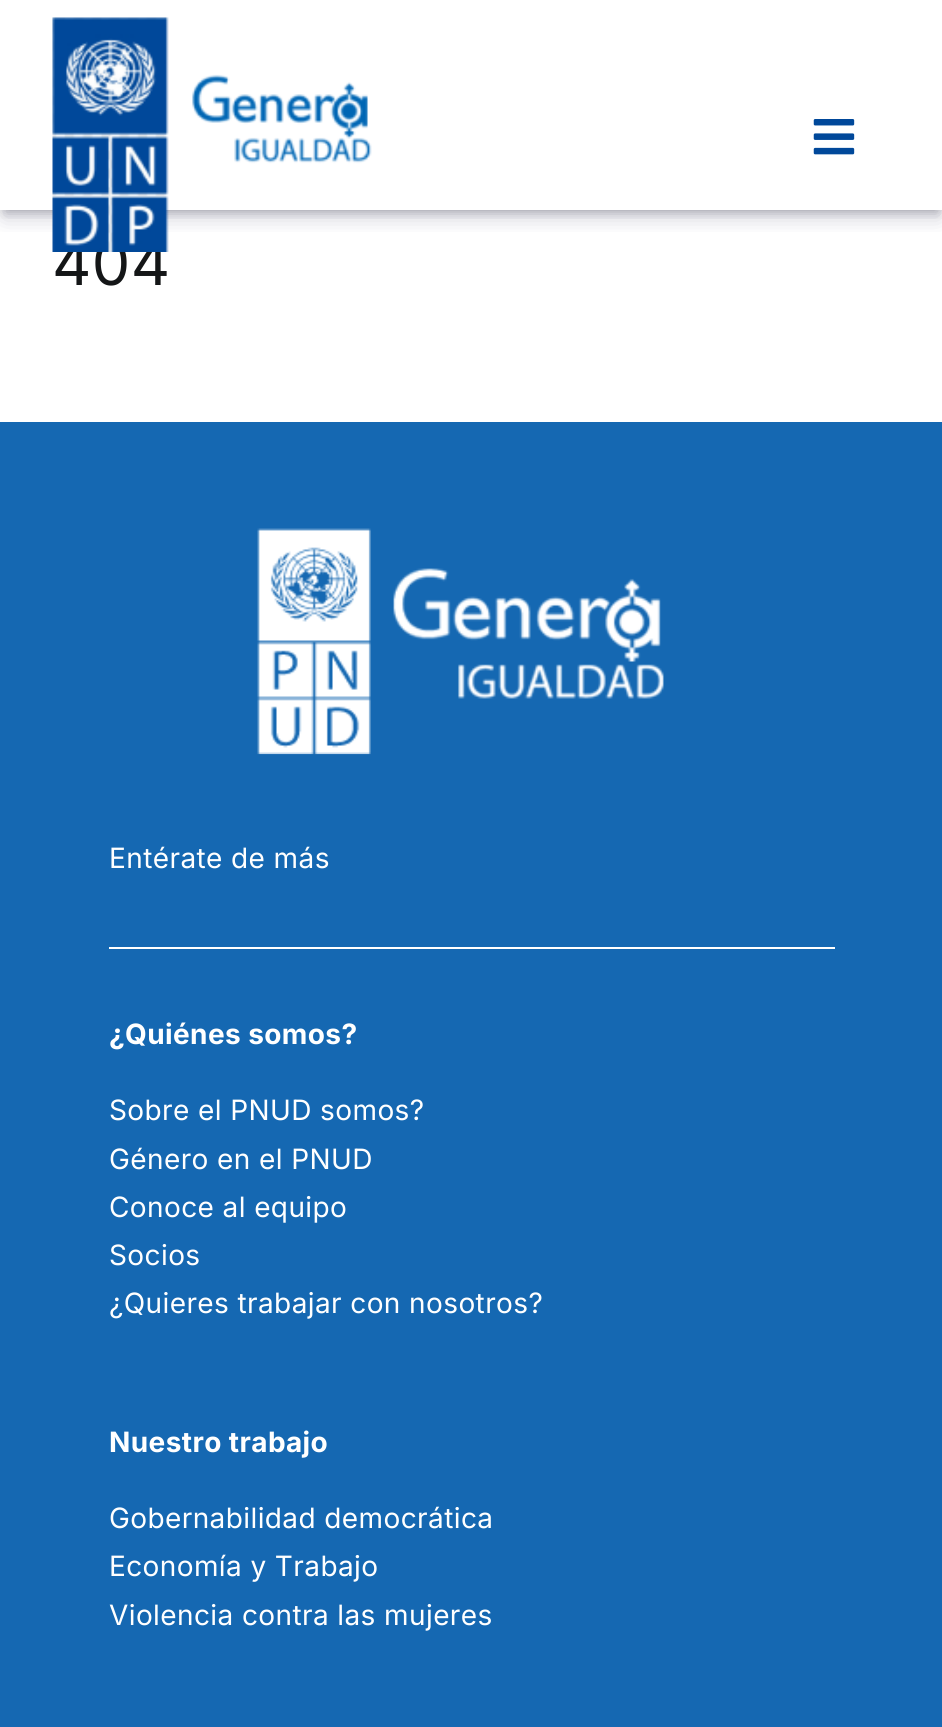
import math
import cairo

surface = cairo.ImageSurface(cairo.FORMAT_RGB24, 942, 1727)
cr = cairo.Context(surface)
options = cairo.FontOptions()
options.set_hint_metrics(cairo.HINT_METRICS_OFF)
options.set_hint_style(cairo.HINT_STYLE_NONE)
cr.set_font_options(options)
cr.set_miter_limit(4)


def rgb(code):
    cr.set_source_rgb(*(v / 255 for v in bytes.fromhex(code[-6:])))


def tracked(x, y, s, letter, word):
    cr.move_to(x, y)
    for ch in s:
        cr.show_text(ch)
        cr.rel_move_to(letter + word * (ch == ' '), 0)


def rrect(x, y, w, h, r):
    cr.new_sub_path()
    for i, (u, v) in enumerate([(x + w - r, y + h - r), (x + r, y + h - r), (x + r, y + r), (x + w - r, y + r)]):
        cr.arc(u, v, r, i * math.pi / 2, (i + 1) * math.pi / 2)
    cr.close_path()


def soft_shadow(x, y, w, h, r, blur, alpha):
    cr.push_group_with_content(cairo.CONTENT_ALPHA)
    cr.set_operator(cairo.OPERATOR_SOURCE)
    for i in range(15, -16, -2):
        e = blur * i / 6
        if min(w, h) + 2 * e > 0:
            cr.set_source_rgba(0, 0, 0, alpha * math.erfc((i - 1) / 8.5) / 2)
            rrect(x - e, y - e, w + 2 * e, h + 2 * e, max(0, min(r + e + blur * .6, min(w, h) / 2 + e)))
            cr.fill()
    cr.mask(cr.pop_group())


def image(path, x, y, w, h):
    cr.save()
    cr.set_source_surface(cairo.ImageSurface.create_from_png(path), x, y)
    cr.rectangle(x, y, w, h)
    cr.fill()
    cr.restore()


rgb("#ffffff")
cr.paint()
cr.save()
cr.rectangle(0, 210, 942, 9)
cr.clip()
rgb("#000000")
soft_shadow(5, 11, 933, 199, 0, 6, 0.3)
cr.restore()
cr.save()
cr.rectangle(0, 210, 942, 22)
cr.clip()
rgb("#32325d")
soft_shadow(4, 14, 936, 203, 0, 10.5, 0.25)
cr.restore()
image("img/2.png", 813, 119, 42, 36)
rgb("#1568b2")
cr.rectangle(0, 422, 942, 1305)
cr.fill()
image("img/3.png", 257, 528, 114, 227)
image("img/4.png", 393, 568, 271, 131)
rgb("#ffffff")
cr.rectangle(109, 947, 726, 2)
cr.fill()
cr.select_font_face("Inter")
cr.set_font_size(61)
rgb("#141617")
tracked(52, 285, "404", 0.4, 0)
image("img/1.png", 52, 17, 320, 235)
cr.set_font_size(28)
rgb("#ffffff")
tracked(109, 868, "Entérate de más", 0.4, 0)
cr.select_font_face("Inter", cairo.FONT_SLANT_NORMAL, cairo.FONT_WEIGHT_BOLD)
tracked(109, 1044, "¿Quiénes somos?", 0.4, 0)
cr.select_font_face("Inter")
for x, y, s in [
    (109, 1120, "Sobre el PNUD somos?"),
    (109, 1169, "Género en el PNUD"),
    (109, 1217, "Conoce al equipo"),
    (109, 1265, "Socios"),
    (109, 1313, "¿Quieres trabajar con nosotros?"),
]:
    tracked(x, y, s, 0.4, 0)
cr.select_font_face("Inter", cairo.FONT_SLANT_NORMAL, cairo.FONT_WEIGHT_BOLD)
tracked(109, 1452, "Nuestro trabajo", 0.4, 0)
cr.select_font_face("Inter")
for x, y, s in [
    (109, 1528, "Gobernabilidad democrática"),
    (109, 1576, "Economía y Trabajo"),
    (109, 1625, "Violencia contra las mujeres"),
]:
    tracked(x, y, s, 0.4, 0)
surface.write_to_png("page.png")
